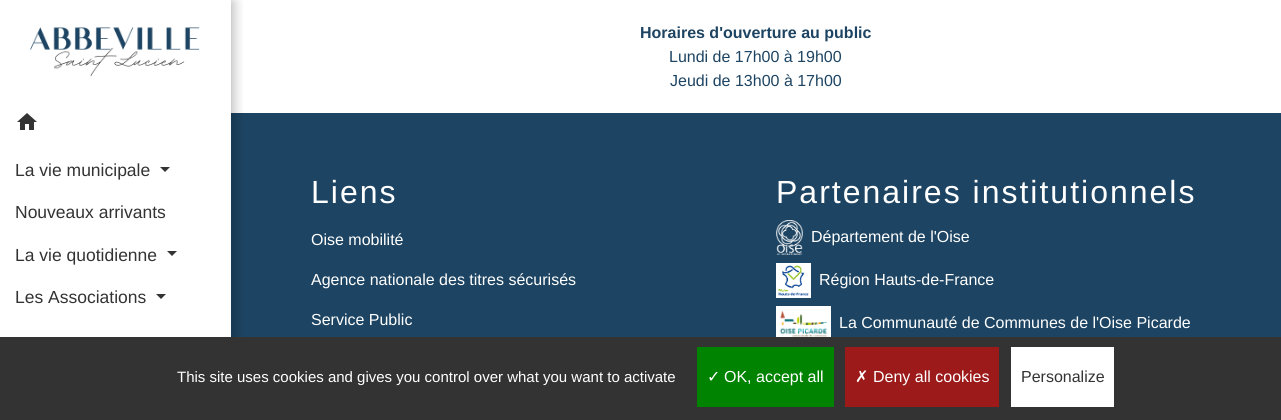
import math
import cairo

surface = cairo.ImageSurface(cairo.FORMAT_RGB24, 1281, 420)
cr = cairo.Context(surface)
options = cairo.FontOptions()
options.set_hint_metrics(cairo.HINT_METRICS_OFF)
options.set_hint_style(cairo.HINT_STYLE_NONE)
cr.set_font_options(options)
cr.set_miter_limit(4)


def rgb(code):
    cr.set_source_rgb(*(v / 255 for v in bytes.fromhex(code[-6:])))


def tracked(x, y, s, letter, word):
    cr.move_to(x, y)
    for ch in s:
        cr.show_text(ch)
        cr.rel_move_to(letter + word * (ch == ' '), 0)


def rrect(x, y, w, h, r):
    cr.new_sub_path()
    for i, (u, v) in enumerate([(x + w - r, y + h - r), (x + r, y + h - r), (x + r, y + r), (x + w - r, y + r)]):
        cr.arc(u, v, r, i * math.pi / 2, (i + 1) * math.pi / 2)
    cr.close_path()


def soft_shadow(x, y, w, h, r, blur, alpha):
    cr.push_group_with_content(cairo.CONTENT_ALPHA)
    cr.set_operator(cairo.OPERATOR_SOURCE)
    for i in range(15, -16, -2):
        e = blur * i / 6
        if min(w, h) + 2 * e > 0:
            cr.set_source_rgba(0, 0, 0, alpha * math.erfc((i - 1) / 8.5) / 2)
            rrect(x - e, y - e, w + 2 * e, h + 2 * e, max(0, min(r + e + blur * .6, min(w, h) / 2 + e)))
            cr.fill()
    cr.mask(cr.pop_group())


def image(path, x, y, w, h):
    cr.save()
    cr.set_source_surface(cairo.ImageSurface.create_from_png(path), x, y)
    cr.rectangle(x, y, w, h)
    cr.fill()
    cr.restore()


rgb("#ffffff")
cr.paint()
rgb("#1d4462")
cr.rectangle(231, 113, 1050, 224)
cr.fill()
cr.save()
cr.rectangle(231, 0, 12, 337)
cr.clip()
rgb("#000000")
soft_shadow(2, 2, 231, 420, 0, 6.5, 0.3)
cr.restore()
image("img/1.png", 30, 27, 170, 50)
image("img/2.png", 17, 113, 20, 17)
rgb("#333333")
cr.new_path()
cr.move_to(160, 167)
cr.line_to(170, 167)
cr.line_to(165, 172)
cr.close_path()
cr.fill()
cr.new_path()
cr.move_to(167, 251)
cr.line_to(177, 251)
cr.line_to(172, 256)
cr.close_path()
cr.fill()
cr.new_path()
cr.move_to(156, 294)
cr.line_to(166, 294)
cr.line_to(161, 299)
cr.close_path()
cr.fill()
image("img/3.png", 776, 220, 27, 35)
image("img/4.png", 776, 263, 35, 35)
image("img/5.png", 776, 306, 55, 31)
for x, y, w, h, color in [
    (0, 337, 1281, 83, "#333333"),
    (697, 347, 137, 60, "#008300"),
    (845, 347, 154, 60, "#9c1a1a"),
    (1011, 347, 103, 60, "#ffffff"),
]:
    rgb(color)
    cr.rectangle(x, y, w, h)
    cr.fill()
cr.select_font_face("Liberation Sans")
cr.set_font_size(17.5)
rgb("#333333")
for x, y, s in [
    (15, 176, "La vie municipale"),
    (15, 218, "Nouveaux arrivants"),
    (15, 261, "La vie quotidienne"),
    (15, 303, "Les Associations"),
]:
    cr.move_to(x, y)
    cr.show_text(s)
cr.select_font_face("Liberation Sans", cairo.FONT_SLANT_NORMAL, cairo.FONT_WEIGHT_BOLD)
cr.set_font_size(16)
rgb("#1d4462")
cr.move_to(640, 38)
cr.show_text("Horaires d'ouverture au public")
cr.select_font_face("Liberation Sans")
cr.move_to(669, 62)
cr.show_text("Lundi de 17h00 à 19h00")
cr.move_to(670, 86)
cr.show_text("Jeudi de 13h00 à 17h00")
cr.set_font_size(32)
rgb("#ffffff")
tracked(311, 203, "Liens", 2, 0)
cr.set_font_size(16)
for x, y, s in [
    (311, 245, "Oise mobilité"),
    (311, 285, "Agence nationale des titres sécurisés"),
    (311, 325, "Service Public"),
]:
    cr.move_to(x, y)
    cr.show_text(s)
cr.set_font_size(32)
tracked(776, 203, "Partenaires institutionnels", 2, 0)
cr.set_font_size(16)
for x, y, s in [
    (811, 242, "Département de l'Oise"),
    (819, 285, "Région Hauts-de-France"),
    (839, 328, "La Communauté de Communes de l'Oise Picarde"),
]:
    cr.move_to(x, y)
    cr.show_text(s)
cr.set_font_size(15)
cr.move_to(177, 382)
cr.show_text("This site uses cookies and gives you control over what you want to activate")
cr.select_font_face("DejaVu Sans")
cr.set_font_size(16)
cr.move_to(707, 382)
cr.show_text("✓")
cr.select_font_face("Liberation Sans")
cr.move_to(724, 382)
cr.show_text("OK, accept all")
cr.select_font_face("DejaVu Sans")
cr.move_to(855, 382)
cr.show_text("✗")
cr.select_font_face("Liberation Sans")
cr.move_to(873, 382)
cr.show_text("Deny all cookies")
rgb("#333333")
cr.move_to(1021, 382)
cr.show_text("Personalize")
surface.write_to_png("page.png")
